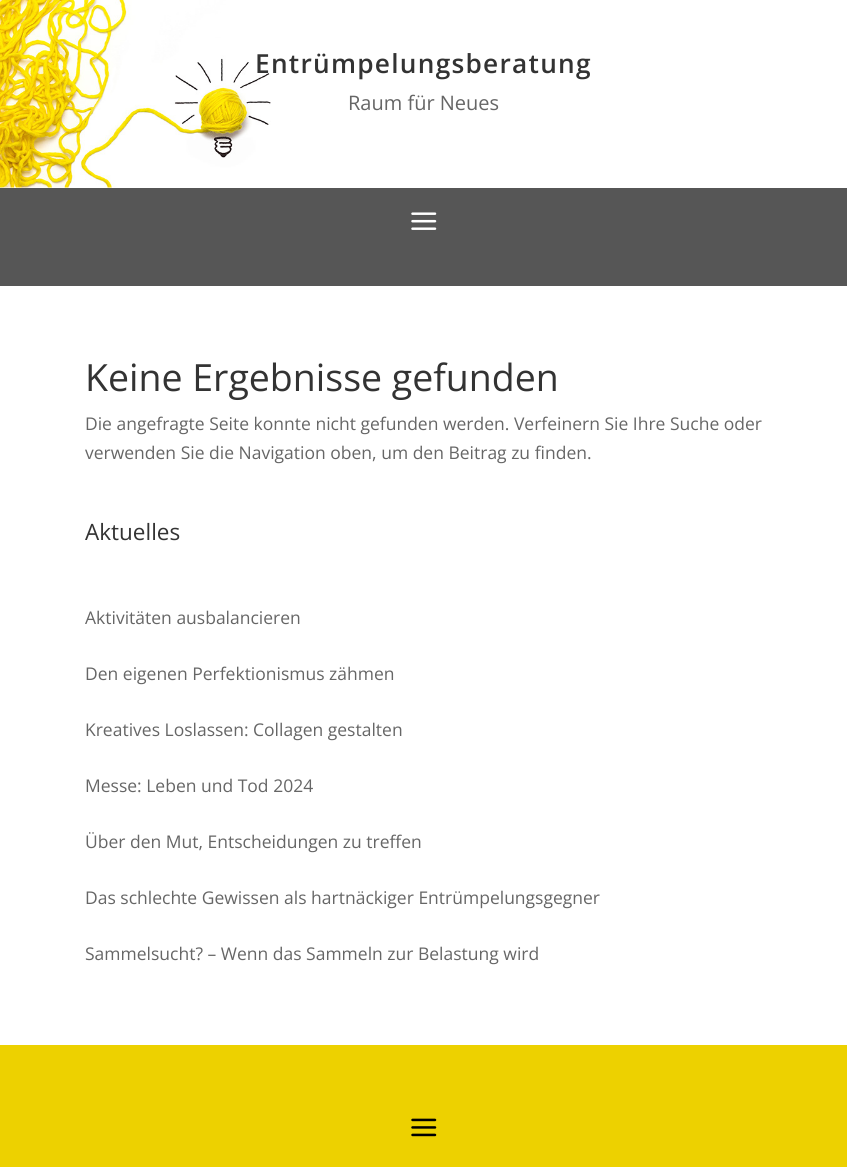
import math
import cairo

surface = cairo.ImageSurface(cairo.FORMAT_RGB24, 847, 1167)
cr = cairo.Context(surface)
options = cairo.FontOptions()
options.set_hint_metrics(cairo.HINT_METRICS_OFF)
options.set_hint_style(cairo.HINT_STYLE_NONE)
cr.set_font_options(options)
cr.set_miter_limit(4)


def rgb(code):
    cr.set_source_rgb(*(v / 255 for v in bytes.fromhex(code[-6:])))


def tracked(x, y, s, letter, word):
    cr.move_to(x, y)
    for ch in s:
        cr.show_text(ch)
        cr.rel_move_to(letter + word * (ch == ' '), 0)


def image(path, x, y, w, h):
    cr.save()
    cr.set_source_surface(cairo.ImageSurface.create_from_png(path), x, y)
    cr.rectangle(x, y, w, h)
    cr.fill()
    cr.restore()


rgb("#ffffff")
cr.paint()
image("img/1.png", 0, 0, 271, 188)
rgb("#565656")
cr.rectangle(0, 188, 847, 98)
cr.fill()
image("img/2.png", 411, 212, 26, 18)
rgb("#edd100")
cr.rectangle(0, 1045, 847, 122)
cr.fill()
image("img/3.png", 411, 1118, 26, 19)
cr.select_font_face("Open Sans SemiBold")
cr.set_font_size(26.25)
rgb("#333333")
tracked(255, 73, "Entrümpelungsberatung", 1.25, 0)
cr.select_font_face("Open Sans")
cr.set_font_size(20)
rgb("#666666")
cr.move_to(348, 110)
cr.show_text("Raum für Neues")
cr.set_font_size(37.5)
rgb("#333333")
cr.move_to(85, 391)
cr.show_text("Keine Ergebnisse gefunden")
cr.set_font_size(17.5)
rgb("#666666")
cr.move_to(85, 430)
cr.show_text("Die angefragte Seite konnte nicht gefunden werden. Verfeinern Sie Ihre Suche oder")
cr.move_to(85, 459)
cr.show_text("verwenden Sie die Navigation oben, um den Beitrag zu finden.")
cr.set_font_size(22.5)
rgb("#333333")
cr.move_to(85, 540)
cr.show_text("Aktuelles")
cr.set_font_size(17.5)
rgb("#666666")
for x, y, s in [
    (85, 624, "Aktivitäten ausbalancieren"),
    (85, 680, "Den eigenen Perfektionismus zähmen"),
    (85, 736, "Kreatives Loslassen: Collagen gestalten"),
    (85, 792, "Messe: Leben und Tod 2024"),
    (85, 848, "Über den Mut, Entscheidungen zu treffen"),
    (85, 904, "Das schlechte Gewissen als hartnäckiger Entrümpelungsgegner"),
    (85, 960, "Sammelsucht? – Wenn das Sammeln zur Belastung wird"),
]:
    cr.move_to(x, y)
    cr.show_text(s)
surface.write_to_png("page.png")
